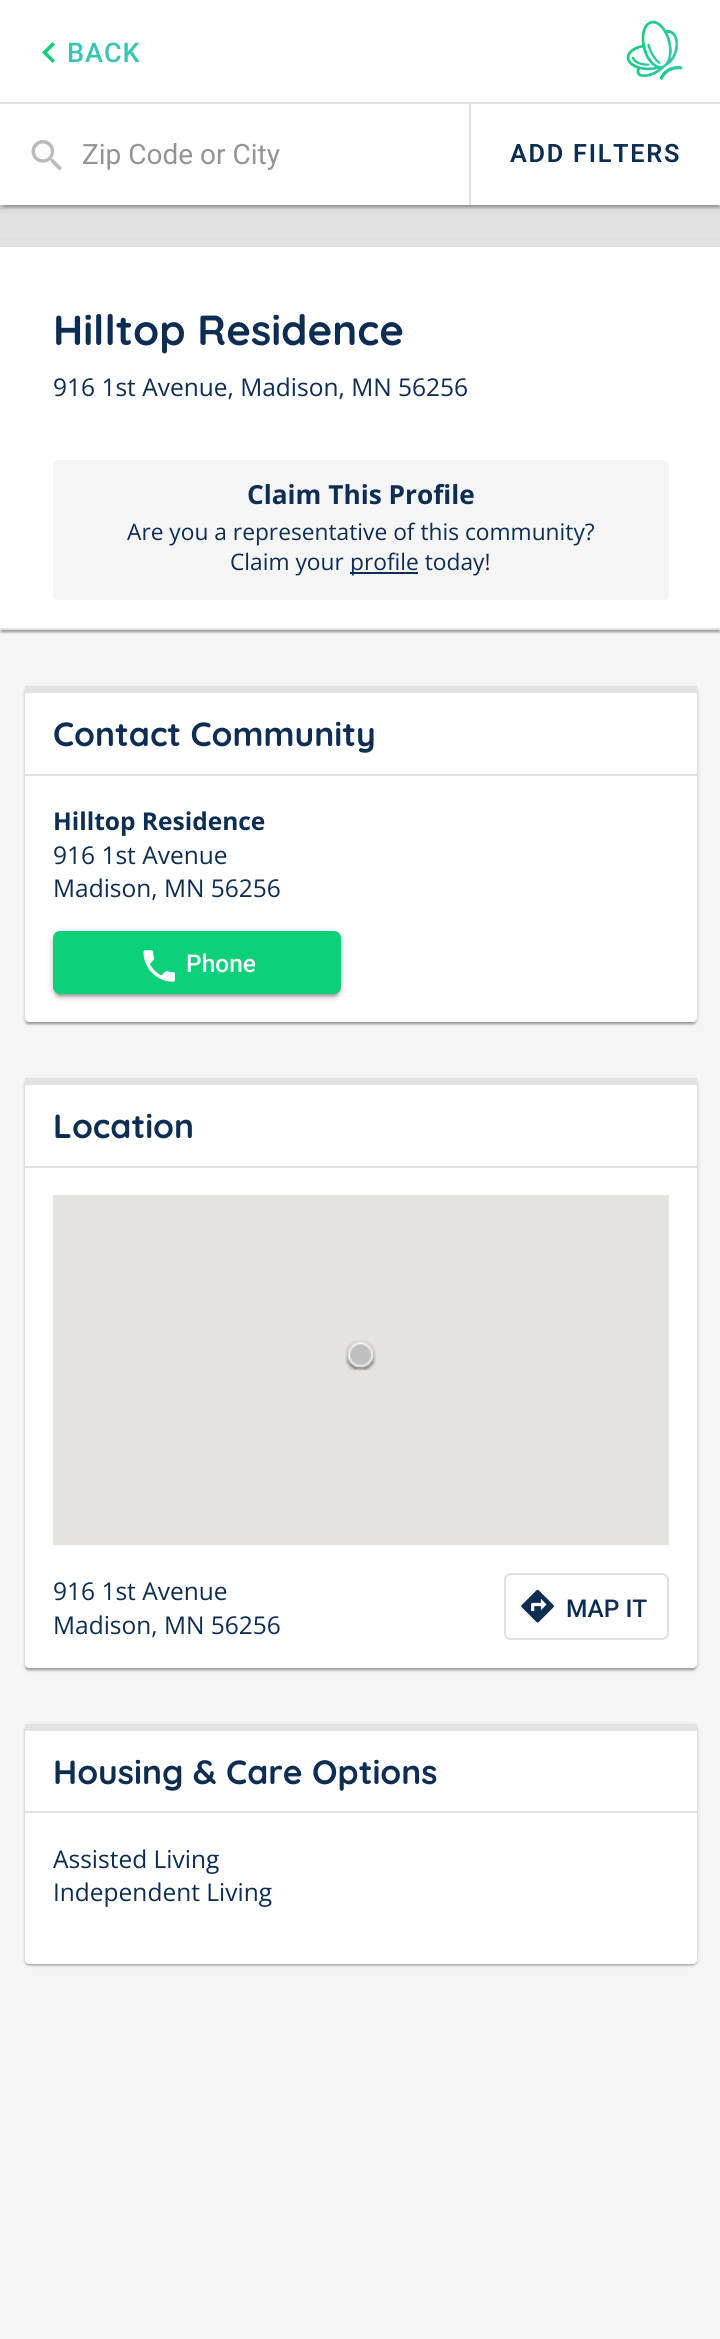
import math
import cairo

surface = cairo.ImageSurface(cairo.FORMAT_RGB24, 720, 2339)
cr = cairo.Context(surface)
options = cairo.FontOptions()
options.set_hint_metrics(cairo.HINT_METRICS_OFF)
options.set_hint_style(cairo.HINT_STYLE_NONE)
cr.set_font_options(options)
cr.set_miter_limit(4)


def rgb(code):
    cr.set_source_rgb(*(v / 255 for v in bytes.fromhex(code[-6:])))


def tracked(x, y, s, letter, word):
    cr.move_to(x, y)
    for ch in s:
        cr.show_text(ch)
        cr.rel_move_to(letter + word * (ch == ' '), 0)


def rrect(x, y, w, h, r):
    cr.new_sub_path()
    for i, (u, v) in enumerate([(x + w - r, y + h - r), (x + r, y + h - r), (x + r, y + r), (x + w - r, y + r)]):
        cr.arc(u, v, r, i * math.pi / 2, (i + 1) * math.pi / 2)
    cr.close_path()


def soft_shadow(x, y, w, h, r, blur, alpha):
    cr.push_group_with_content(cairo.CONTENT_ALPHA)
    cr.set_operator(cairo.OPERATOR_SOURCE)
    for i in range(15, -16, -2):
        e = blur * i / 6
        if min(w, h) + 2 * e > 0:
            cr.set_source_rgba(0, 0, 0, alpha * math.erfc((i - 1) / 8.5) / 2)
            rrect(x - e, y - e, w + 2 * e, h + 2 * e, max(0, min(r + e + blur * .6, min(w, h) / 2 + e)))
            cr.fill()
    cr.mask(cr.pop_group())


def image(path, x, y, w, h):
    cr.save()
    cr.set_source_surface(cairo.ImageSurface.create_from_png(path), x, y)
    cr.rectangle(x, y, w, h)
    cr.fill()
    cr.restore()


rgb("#f5f5f5")
cr.paint()
rgb("#e1e2e1")
cr.rectangle(0, 205, 720, 35)
cr.fill()
rgb("#000000")
soft_shadow(0, 2, 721, 205, 0, 4.5, 0.12)
soft_shadow(0, 4, 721, 204, 0, 2, 0.14)
soft_shadow(4, 9, 714, 198, 0, 1, 0.2)
rgb("#ffffff")
cr.rectangle(0, 0, 720, 205)
cr.fill()
rgb("#e0e0e0")
cr.rectangle(0, 102, 720, 2)
cr.fill()
rgb("#0cd07a")
cr.new_path()
cr.move_to(55, 44.5)
cr.line_to(47, 52.5)
cr.line_to(55, 60.5)
cr.line_to(52.5, 63)
cr.line_to(42, 52.5)
cr.line_to(52.5, 42)
cr.close_path()
cr.fill()
image("img/1.png", 626, 20, 57, 60)
image("img/2.png", 31, 140, 31, 31)
rgb("#e0e0e0")
cr.rectangle(469, 103, 2, 102)
cr.fill()
rgb("#000000")
soft_shadow(0, 242, 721, 390, 0, 2.5, 0.12)
soft_shadow(0, 242, 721, 390, 0, 1, 0.14)
soft_shadow(2, 245, 717, 387, 0, 1, 0.2)
for x, y, w, h, color in [
    (0, 247, 720, 381, "#ffffff"),
    (0, 240, 720, 7, "#e1e2e1"),
    (0, 628, 720, 2, "#e1e2e1"),
]:
    rgb(color)
    cr.rectangle(x, y, w, h)
    cr.fill()
rgb("#f5f5f5")
rrect(53, 460, 616, 140, 5)
cr.fill()
rgb("#0d2d53")
cr.rectangle(350, 572, 68, 2)
cr.fill()
rgb("#000000")
soft_shadow(25, 688, 672, 336, 4, 2.5, 0.12)
soft_shadow(25, 688, 672, 336, 4, 1, 0.14)
soft_shadow(26, 691, 669, 333, 2, 1, 0.2)
rgb("#ffffff")
cr.new_path()
cr.move_to(25, 686)
cr.line_to(697, 686)
cr.line_to(697, 1018)
cr.curve_to(697, 1020, 695, 1022, 693, 1022)
cr.line_to(29, 1022)
cr.curve_to(27, 1022, 25, 1020, 25, 1018)
cr.close_path()
cr.fill()
rgb("#e1e2e1")
cr.rectangle(25, 686, 672, 7)
cr.fill()
cr.rectangle(25, 774, 672, 2)
cr.fill()
rgb("#000000")
soft_shadow(53, 933, 288, 63, 7, 4.5, 0.12)
soft_shadow(53, 935, 288, 63, 7, 2, 0.14)
soft_shadow(56, 940, 282, 56, 4, 1, 0.2)
rgb("#0cd07a")
rrect(53, 931, 288, 63, 7)
cr.fill()
image("img/3.png", 143, 950, 32, 32)
rgb("#000000")
soft_shadow(25, 1080, 672, 590, 4, 2.5, 0.12)
soft_shadow(25, 1080, 672, 590, 4, 1, 0.14)
soft_shadow(26, 1083, 669, 587, 2, 1, 0.2)
rgb("#ffffff")
cr.new_path()
cr.move_to(25, 1078)
cr.line_to(697, 1078)
cr.line_to(697, 1664)
cr.curve_to(697, 1666, 695, 1668, 693, 1668)
cr.line_to(29, 1668)
cr.curve_to(27, 1668, 25, 1666, 25, 1664)
cr.close_path()
cr.fill()
for x, y, w, h, color in [
    (25, 1078, 672, 7, "#e1e2e1"),
    (25, 1166, 672, 2, "#e1e2e1"),
    (53, 1195, 616, 350, "#e5e3df"),
]:
    rgb(color)
    cr.rectangle(x, y, w, h)
    cr.fill()
image("img/4.png", 345, 1340, 31, 31)
rrect(505, 1574, 163, 65, 6)
rgb("#e0e0e0")
cr.stroke()
image("img/5.png", 521, 1589, 33, 34)
rgb("#000000")
soft_shadow(25, 1726, 672, 239, 4, 2.5, 0.12)
soft_shadow(25, 1726, 672, 239, 4, 1, 0.14)
soft_shadow(26, 1729, 669, 236, 2, 1, 0.2)
rgb("#ffffff")
cr.new_path()
cr.move_to(25, 1724)
cr.line_to(697, 1724)
cr.line_to(697, 1960)
cr.curve_to(697, 1962, 695, 1964, 693, 1964)
cr.line_to(29, 1964)
cr.curve_to(27, 1964, 25, 1962, 25, 1960)
cr.close_path()
cr.fill()
rgb("#e1e2e1")
cr.rectangle(25, 1724, 672, 7)
cr.fill()
cr.rectangle(25, 1811, 672, 2)
cr.fill()
cr.select_font_face("Roboto Medium")
cr.set_font_size(27)
rgb("#38c6b0")
tracked(67, 62, "BACK", 1, 0)
cr.select_font_face("Roboto")
cr.set_font_size(28)
rgb("#949494")
cr.move_to(82, 164)
cr.show_text("Zip Code or City")
cr.select_font_face("Roboto SemiBold")
cr.set_font_size(25.25)
rgb("#0d2d53")
tracked(510, 162, "ADD FILTERS", 1.75, 0)
cr.select_font_face("Quicksand", cairo.FONT_SLANT_NORMAL, cairo.FONT_WEIGHT_BOLD)
cr.set_font_size(42)
cr.move_to(53, 345)
cr.show_text("Hilltop Residence")
cr.select_font_face("Open Sans")
cr.set_font_size(24.5)
cr.move_to(53, 396)
cr.show_text("916 1st Avenue, Madison, MN 56256")
cr.select_font_face("Open Sans", cairo.FONT_SLANT_NORMAL, cairo.FONT_WEIGHT_BOLD)
cr.set_font_size(26.25)
cr.move_to(247, 504)
cr.show_text("Claim This Profile")
cr.select_font_face("Open Sans")
cr.set_font_size(22.75)
for x, y, s in [
    (127, 540, "Are you a representative of this community?"),
    (230, 570, "Claim your"),
    (350, 570, "profile today!"),
]:
    cr.move_to(x, y)
    cr.show_text(s)
cr.select_font_face("Quicksand", cairo.FONT_SLANT_NORMAL, cairo.FONT_WEIGHT_BOLD)
cr.set_font_size(33.6)
cr.move_to(53, 746)
cr.show_text("Contact Community")
cr.select_font_face("Open Sans", cairo.FONT_SLANT_NORMAL, cairo.FONT_WEIGHT_BOLD)
cr.set_font_size(24.5)
cr.move_to(53, 830)
cr.show_text("Hilltop Residence")
cr.select_font_face("Open Sans")
cr.move_to(53, 864)
cr.show_text("916 1st Avenue")
cr.move_to(53, 897)
cr.show_text("Madison, MN 56256")
cr.select_font_face("Roboto Medium")
rgb("#ffffff")
cr.move_to(186, 972)
cr.show_text("Phone")
cr.select_font_face("Quicksand", cairo.FONT_SLANT_NORMAL, cairo.FONT_WEIGHT_BOLD)
cr.set_font_size(33.6)
rgb("#0d2d53")
cr.move_to(53, 1138)
cr.show_text("Location")
cr.select_font_face("Open Sans")
cr.set_font_size(24.5)
cr.move_to(53, 1600)
cr.show_text("916 1st Avenue")
cr.move_to(53, 1634)
cr.show_text("Madison, MN 56256")
cr.select_font_face("Roboto Medium")
cr.move_to(566, 1617)
cr.show_text("MAP IT")
cr.select_font_face("Quicksand", cairo.FONT_SLANT_NORMAL, cairo.FONT_WEIGHT_BOLD)
cr.set_font_size(33.6)
cr.move_to(53, 1784)
cr.show_text("Housing & Care Options")
cr.select_font_face("Open Sans")
cr.set_font_size(24.5)
cr.move_to(53, 1868)
cr.show_text("Assisted Living")
cr.move_to(53, 1901)
cr.show_text("Independent Living")
surface.write_to_png("page.png")
